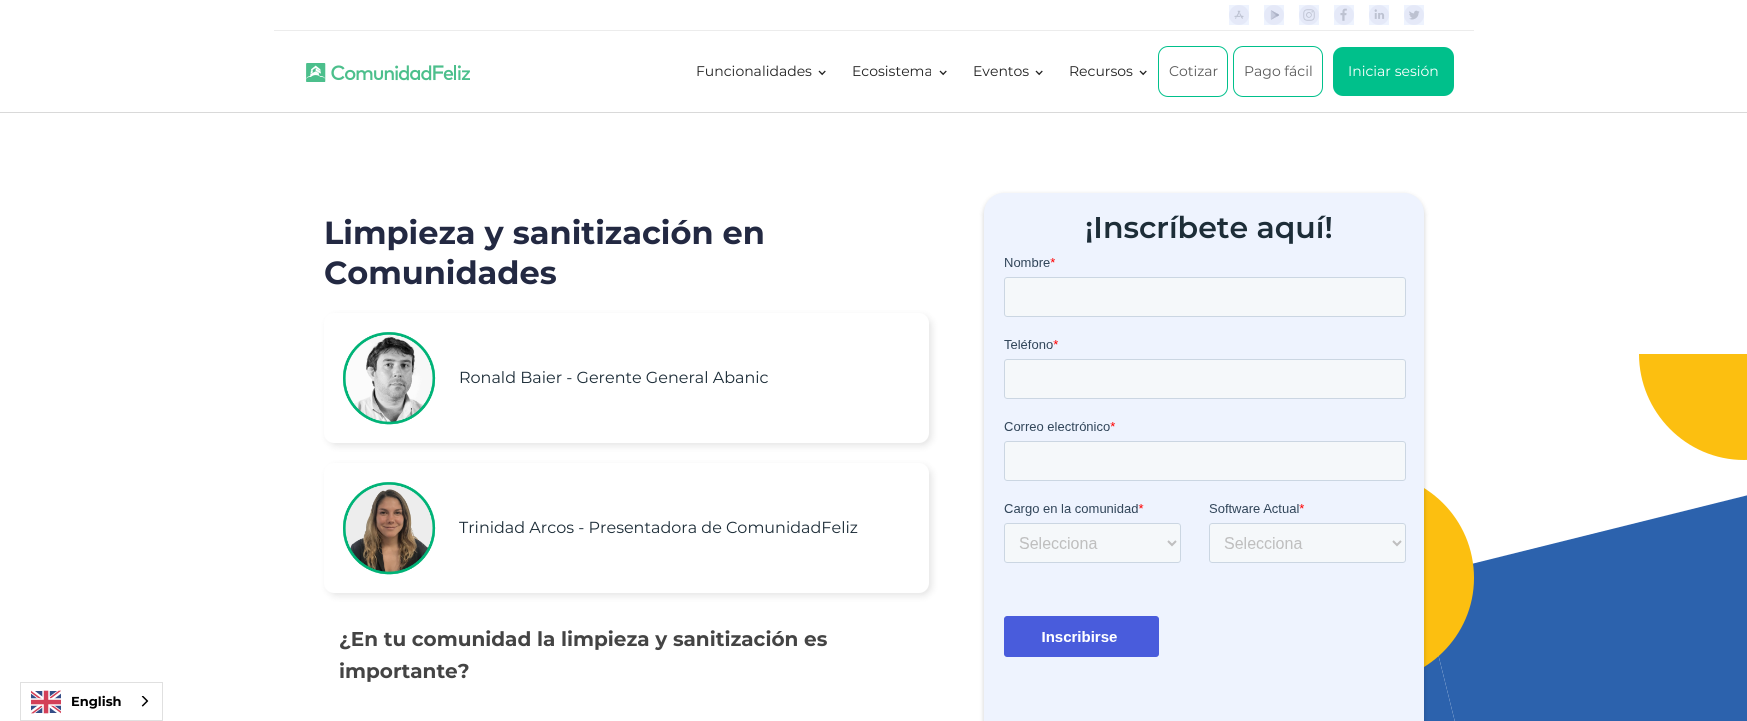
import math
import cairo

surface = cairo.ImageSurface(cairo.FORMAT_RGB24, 1747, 721)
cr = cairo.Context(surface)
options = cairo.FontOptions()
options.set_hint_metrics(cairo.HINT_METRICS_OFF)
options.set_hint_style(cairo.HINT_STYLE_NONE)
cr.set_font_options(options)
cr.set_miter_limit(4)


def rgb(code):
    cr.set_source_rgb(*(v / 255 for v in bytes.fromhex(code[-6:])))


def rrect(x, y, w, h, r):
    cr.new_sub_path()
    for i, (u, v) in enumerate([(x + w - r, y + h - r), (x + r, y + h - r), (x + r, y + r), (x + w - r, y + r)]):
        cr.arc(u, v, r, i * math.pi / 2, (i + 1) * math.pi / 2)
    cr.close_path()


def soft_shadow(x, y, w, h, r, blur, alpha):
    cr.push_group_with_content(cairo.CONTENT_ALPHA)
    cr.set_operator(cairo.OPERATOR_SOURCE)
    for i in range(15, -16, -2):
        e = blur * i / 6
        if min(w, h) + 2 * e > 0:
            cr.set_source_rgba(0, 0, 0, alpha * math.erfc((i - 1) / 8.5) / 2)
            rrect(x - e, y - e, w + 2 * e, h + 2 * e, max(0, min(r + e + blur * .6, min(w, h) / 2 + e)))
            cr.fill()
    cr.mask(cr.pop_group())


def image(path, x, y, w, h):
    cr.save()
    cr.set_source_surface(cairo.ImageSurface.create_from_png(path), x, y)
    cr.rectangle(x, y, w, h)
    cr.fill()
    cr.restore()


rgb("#ffffff")
cr.paint()
for x, y, w, h, color in [
    (0, 112, 1747, 1, "#d9d9d9"),
    (274, 30, 1200, 1, "#ececec"),
    (1229, 5, 20, 20, "#eef3fe"),
]:
    rgb(color)
    cr.rectangle(x, y, w, h)
    cr.fill()
image("img/1.png", 1229, 5, 20, 20)
cr.rectangle(1264, 5, 20, 20)
cr.fill()
image("img/2.png", 1264, 5, 20, 20)
cr.rectangle(1299, 5, 20, 20)
cr.fill()
image("img/3.png", 1299, 5, 20, 20)
cr.rectangle(1334, 5, 20, 20)
cr.fill()
image("img/4.png", 1334, 5, 20, 20)
cr.rectangle(1369, 5, 20, 20)
cr.fill()
image("img/5.png", 1369, 5, 20, 20)
cr.rectangle(1404, 5, 20, 20)
cr.fill()
image("img/6.png", 1404, 5, 20, 20)
image("img/7.png", 306, 63, 164, 19)
image("img/8.png", 818, 70, 8, 6)
image("img/8.png", 939, 70, 8, 6)
image("img/8.png", 1035, 70, 8, 6)
image("img/8.png", 1139, 70, 8, 6)
rrect(1158.5, 46.5, 69, 50, 9.5)
rgb("#00c08b")
cr.set_line_width(1)
cr.stroke()
rrect(1233.5, 46.5, 89, 50, 9.5)
cr.stroke()
rrect(1333, 47, 121, 49, 10)
cr.fill()
rgb("#2c62ad")
cr.new_path()
cr.move_to(1486, 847)
cr.curve_to(1411, 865, 1336, 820, 1317, 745)
cr.curve_to(1299, 671, 1344, 596, 1419, 577)
cr.close_path()
cr.fill()
cr.new_path()
cr.move_to(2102, 407)
cr.line_to(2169, 677)
cr.line_to(1486, 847)
cr.line_to(1419, 577)
cr.close_path()
cr.fill()
rgb("#fcbf10")
cr.new_path()
cr.move_to(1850, 354)
cr.curve_to(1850, 412, 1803, 460, 1744, 460)
cr.curve_to(1686, 460, 1639, 412, 1639, 354)
cr.close_path()
cr.fill()
cr.new_path()
cr.move_to(1368, 472)
cr.curve_to(1426, 472, 1474, 519, 1474, 578)
cr.curve_to(1474, 636, 1426, 683, 1368, 683)
cr.close_path()
cr.fill()
rgb("#000000")
soft_shadow(327, 316, 605, 130, 10, 3.5, 0.1)
rgb("#ffffff")
rrect(324, 313, 605, 130, 10)
cr.fill()
image("img/9.png", 343, 332, 93, 93)
rgb("#000000")
soft_shadow(327, 466, 605, 130, 10, 3.5, 0.1)
rgb("#ffffff")
rrect(324, 463, 605, 130, 10)
cr.fill()
image("img/10.png", 343, 482, 93, 93)
rgb("#000000")
soft_shadow(984, 195, 440, 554, 20, 2.5, 0.2)
rgb("#eef3fe")
rrect(984, 193, 440, 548, 20)
cr.fill()
image("img/11.png", 1004, 258, 402, 399)
cr.rectangle(20.5, 682.5, 142, 38)
rgb("#e0e0e0")
cr.stroke()
image("img/12.png", 31, 690, 30, 24)
image("img/13.png", 141, 696, 8, 11)
cr.select_font_face("Montserrat")
cr.set_font_size(14)
rgb("#222222")
for x, y, s in [
    (696, 76, "Funcionalidades"),
    (852, 76, "Ecosistema"),
    (973, 76, "Eventos"),
    (1069, 76, "Recursos"),
]:
    cr.move_to(x, y)
    cr.show_text(s)
rgb("#5a5a5a")
cr.move_to(1169, 76)
cr.show_text("Cotizar")
cr.move_to(1244, 76)
cr.show_text("Pago fácil")
rgb("#ffffff")
cr.move_to(1348, 76)
cr.show_text("Iniciar sesión")
cr.select_font_face("Montserrat", cairo.FONT_SLANT_NORMAL, cairo.FONT_WEIGHT_BOLD)
cr.set_font_size(32)
rgb("#232942")
cr.move_to(324, 244)
cr.show_text("Limpieza y sanitización en")
cr.move_to(324, 284)
cr.show_text("Comunidades")
cr.select_font_face("Montserrat")
cr.set_font_size(16)
rgb("#1d2d38")
cr.move_to(459, 383)
cr.show_text("Ronald Baier - Gerente General Abanic")
cr.move_to(459, 533)
cr.show_text("Trinidad Arcos - Presentadora de ComunidadFeliz")
cr.select_font_face("Montserrat", cairo.FONT_SLANT_NORMAL, cairo.FONT_WEIGHT_BOLD)
cr.set_font_size(20)
rgb("#444444")
cr.move_to(339, 646)
cr.show_text("¿En tu comunidad la limpieza y sanitización es")
cr.move_to(339, 678)
cr.show_text("importante?")
cr.select_font_face("Montserrat SemiBold")
cr.set_font_size(30)
rgb("#1d2d38")
cr.move_to(1085, 238)
cr.show_text("¡Inscríbete aquí!")
cr.select_font_face("Montserrat", cairo.FONT_SLANT_NORMAL, cairo.FONT_WEIGHT_BOLD)
cr.set_font_size(13)
rgb("#000000")
cr.move_to(71, 706)
cr.show_text("English")
surface.write_to_png("page.png")
